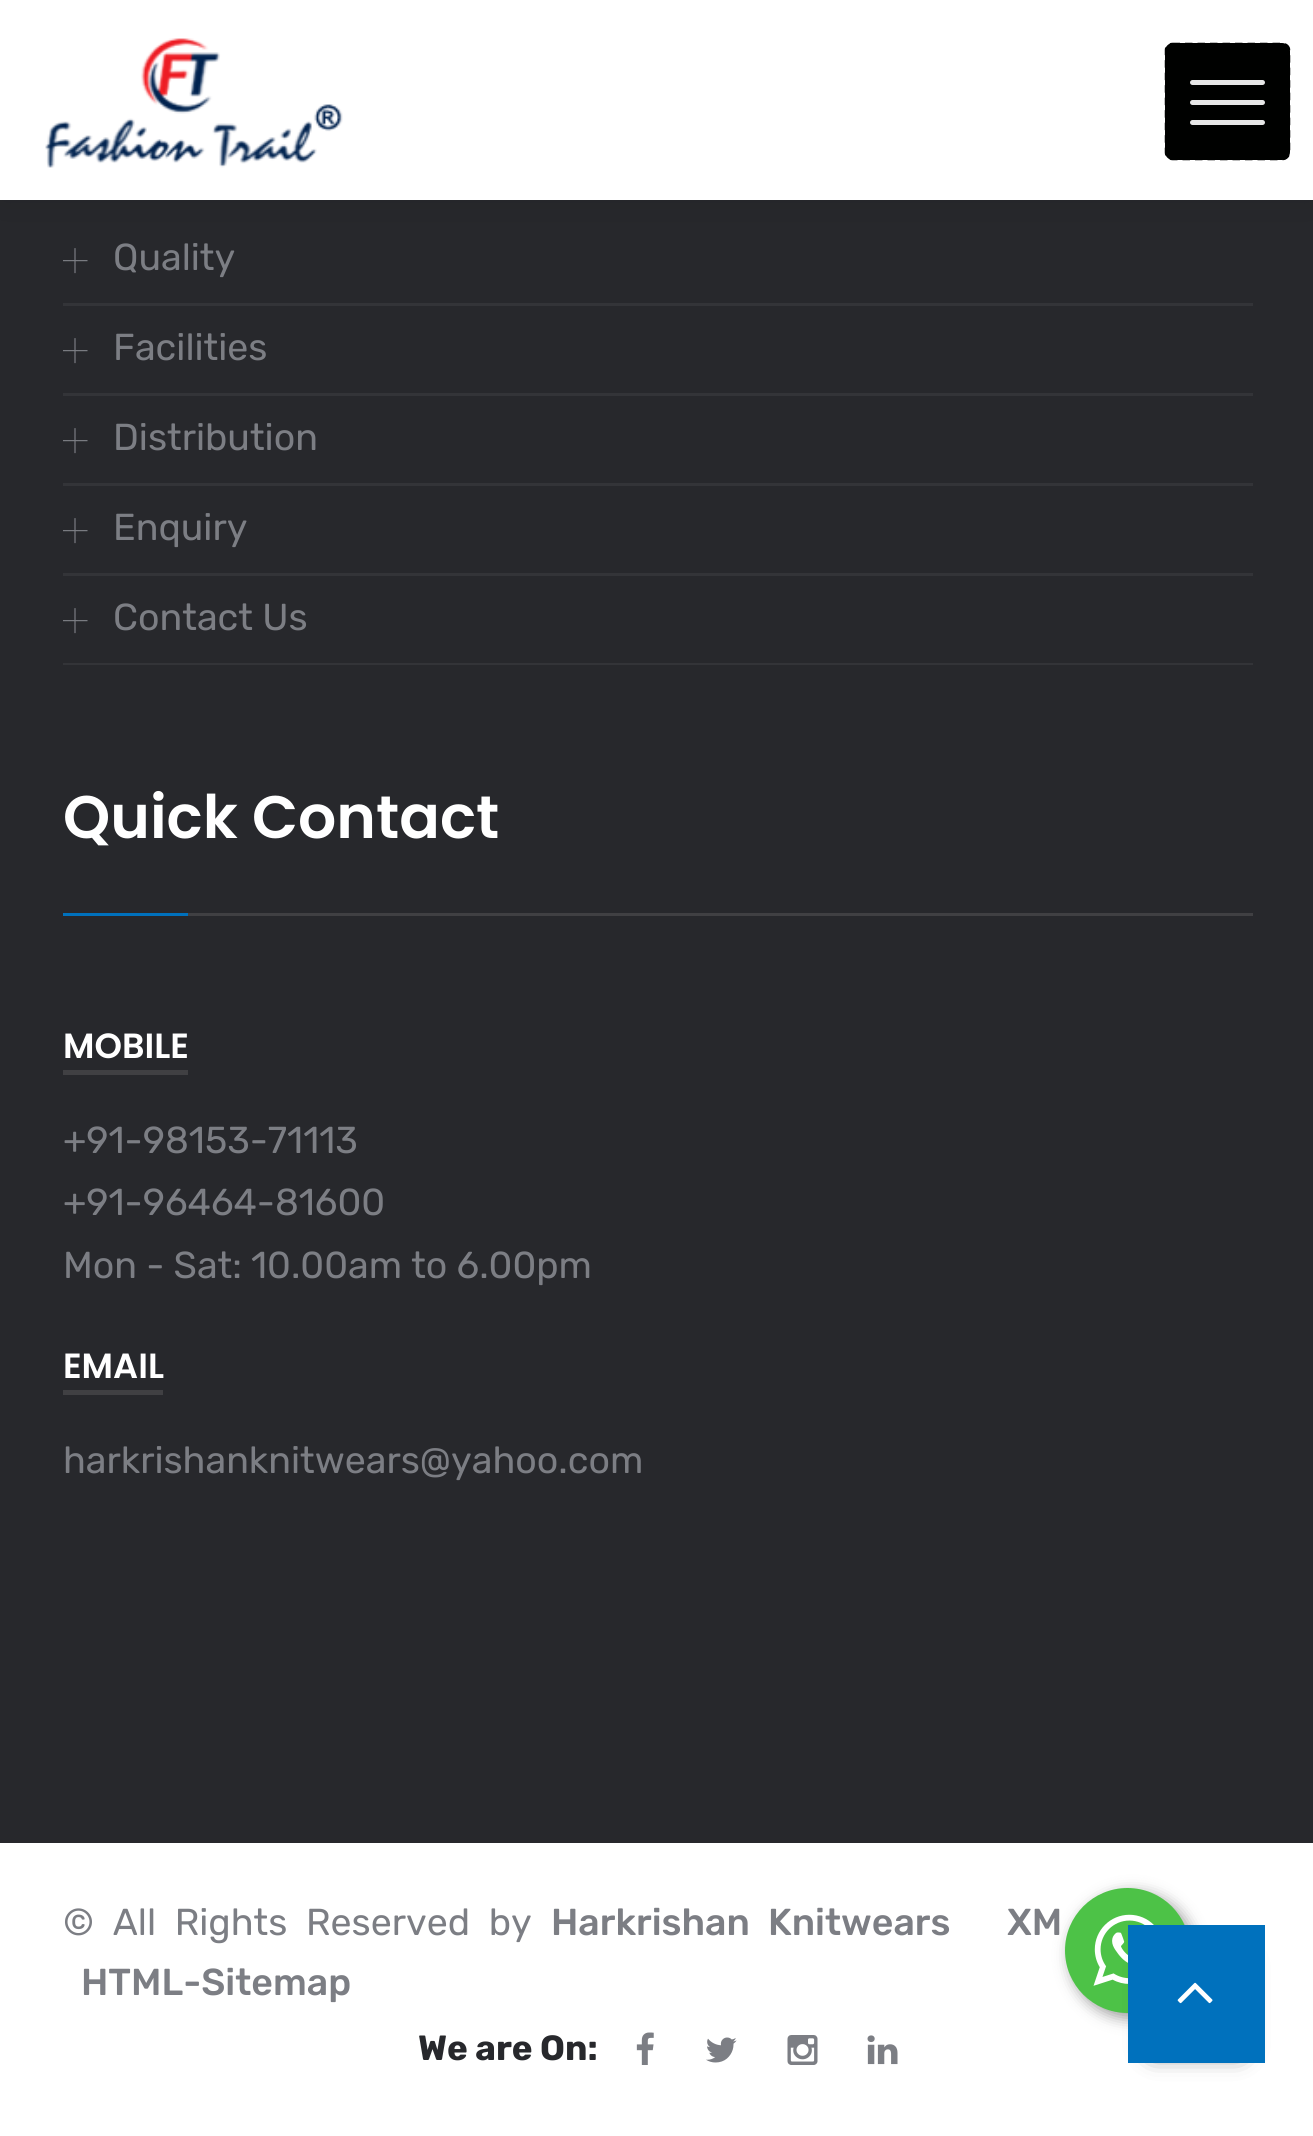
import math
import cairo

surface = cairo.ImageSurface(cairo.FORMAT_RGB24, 1313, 2136)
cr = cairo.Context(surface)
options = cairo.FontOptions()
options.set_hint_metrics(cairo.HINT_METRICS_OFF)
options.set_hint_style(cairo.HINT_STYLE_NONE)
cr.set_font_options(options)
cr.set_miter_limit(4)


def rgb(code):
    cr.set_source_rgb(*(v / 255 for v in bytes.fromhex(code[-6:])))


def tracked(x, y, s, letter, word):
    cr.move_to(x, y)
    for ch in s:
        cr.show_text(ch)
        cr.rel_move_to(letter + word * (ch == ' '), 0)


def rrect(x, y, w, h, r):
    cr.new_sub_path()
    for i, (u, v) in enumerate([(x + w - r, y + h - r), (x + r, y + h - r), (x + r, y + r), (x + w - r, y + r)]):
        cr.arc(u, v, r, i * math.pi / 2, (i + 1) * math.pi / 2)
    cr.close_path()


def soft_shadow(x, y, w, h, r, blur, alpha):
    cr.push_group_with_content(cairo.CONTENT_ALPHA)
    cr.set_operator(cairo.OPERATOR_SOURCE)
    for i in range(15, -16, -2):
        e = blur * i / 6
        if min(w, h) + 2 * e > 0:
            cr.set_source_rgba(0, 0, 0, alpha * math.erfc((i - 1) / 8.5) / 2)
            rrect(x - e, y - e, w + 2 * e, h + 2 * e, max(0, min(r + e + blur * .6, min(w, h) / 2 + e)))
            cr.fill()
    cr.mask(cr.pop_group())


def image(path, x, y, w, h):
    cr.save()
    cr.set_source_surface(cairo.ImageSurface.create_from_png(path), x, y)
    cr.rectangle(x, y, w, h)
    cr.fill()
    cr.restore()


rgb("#ffffff")
cr.paint()
rgb("#27282c")
cr.rectangle(0, 200, 1313, 1643)
cr.fill()
image("img/2.png", 63, 248, 25, 26)
rgb("#000000")
soft_shadow(0, 0, 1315, 200, 0, 19, 0.1)
rgb("#ffffff")
cr.rectangle(0, 0, 1313, 200)
cr.fill()
image("img/1.png", 45, 38, 298, 130)
rgb("#000100")
rrect(1165, 43, 125, 117, 8)
cr.fill()
cr.new_path()
cr.move_to(1172.5, 44)
cr.line_to(1282.5, 44)
cr.curve_to(1286, 44, 1289, 46.5, 1289, 50)
cr.line_to(1289, 152.5)
cr.curve_to(1289, 156, 1286, 159, 1282.5, 159)
cr.line_to(1172.5, 159)
cr.curve_to(1169, 159, 1166, 156, 1166, 152.5)
cr.line_to(1166, 50)
cr.curve_to(1166, 46.5, 1169, 44, 1172.5, 44)
cr.close_path()
cr.set_line_width(2.5)
cr.set_dash([7.5, 5])
cr.stroke()
rgb("#e7e7e7")
rrect(1190, 80, 75, 5, 2.5)
cr.fill()
rrect(1190, 100, 75, 5, 2.5)
cr.fill()
rrect(1190, 120, 75, 5, 2.5)
cr.fill()
rgb("#333438")
cr.rectangle(63, 303, 1190, 3)
cr.fill()
cr.rectangle(63, 393, 1190, 3)
cr.fill()
image("img/2.png", 63, 338, 25, 26)
cr.rectangle(63, 483, 1190, 3)
cr.fill()
image("img/2.png", 63, 428, 25, 26)
cr.rectangle(63, 573, 1190, 3)
cr.fill()
image("img/2.png", 63, 518, 25, 26)
cr.rectangle(63, 663, 1190, 2)
cr.fill()
image("img/2.png", 63, 608, 25, 26)
for x, y, w, h, color in [
    (63, 913, 125, 3, "#0071bd"),
    (188, 913, 1065, 3, "#404043"),
    (63, 1070, 125, 5, "#404043"),
    (63, 1390, 100, 5, "#404043"),
]:
    rgb(color)
    cr.rectangle(x, y, w, h)
    cr.fill()
image("img/3.png", 636, 2032, 18, 33)
image("img/4.png", 706, 2037, 31, 26)
image("img/5.png", 787, 2035, 31, 30)
image("img/6.png", 867, 2035, 31, 30)
rgb("#000000")
soft_shadow(1070, 1893, 125, 125, 62.5, 7.5, 0.4)
rgb("#4dc247")
cr.arc(1127.5, 1950.5, 62.5, 0, 2 * math.pi)
cr.fill()
image("img/7.png", 1093, 1914, 61, 72)
rgb("#1b1b1b")
soft_shadow(1153, 1963, 87, 87, 0, 12.5, 1)
rgb("#0071bd")
cr.rectangle(1128, 1925, 137, 138)
cr.fill()
image("img/8.png", 1177, 1982, 36, 22)
cr.select_font_face("Rubik")
cr.set_font_size(37.5)
rgb("#7c7e84")
for x, y, s in [
    (113, 270, "Quality"),
    (113, 360, "Facilities"),
    (113, 450, "Distribution"),
    (113, 540, "Enquiry"),
    (113, 630, "Contact Us"),
]:
    cr.move_to(x, y)
    cr.show_text(s)
cr.select_font_face("Poppins SemiBold")
cr.set_font_size(60)
rgb("#ffffff")
cr.move_to(63, 838)
cr.show_text("Quick Contact")
cr.set_font_size(35)
cr.move_to(63, 1058)
cr.show_text("MOBILE")
cr.select_font_face("Rubik")
cr.set_font_size(37.5)
rgb("#7c7e84")
for x, y, s in [
    (63, 1153, "+91-98153-71113"),
    (63, 1215, "+91-96464-81600"),
    (63, 1278, "Mon - Sat: 10.00am to 6.00pm"),
]:
    cr.move_to(x, y)
    cr.show_text(s)
cr.select_font_face("Poppins SemiBold")
cr.set_font_size(35)
rgb("#ffffff")
cr.move_to(63, 1378)
cr.show_text("EMAIL")
cr.select_font_face("Rubik")
cr.set_font_size(37.5)
rgb("#7c7e84")
cr.move_to(63, 1473)
cr.show_text("harkrishanknitwears@yahoo.com")
tracked(63, 1935, "© All Rights Reserved by", 0, 9.5)
cr.select_font_face("Rubik Medium")
tracked(551, 1935, "Harkrishan Knitwears", 0, 9.5)
cr.move_to(1007, 1935)
cr.show_text("XM")
cr.move_to(81, 1995)
cr.show_text("HTML-Sitemap")
cr.select_font_face("Rubik", cairo.FONT_SLANT_NORMAL, cairo.FONT_WEIGHT_BOLD)
cr.set_font_size(35)
rgb("#27282c")
cr.move_to(418, 2060)
cr.show_text("We are On:")
surface.write_to_png("page.png")
